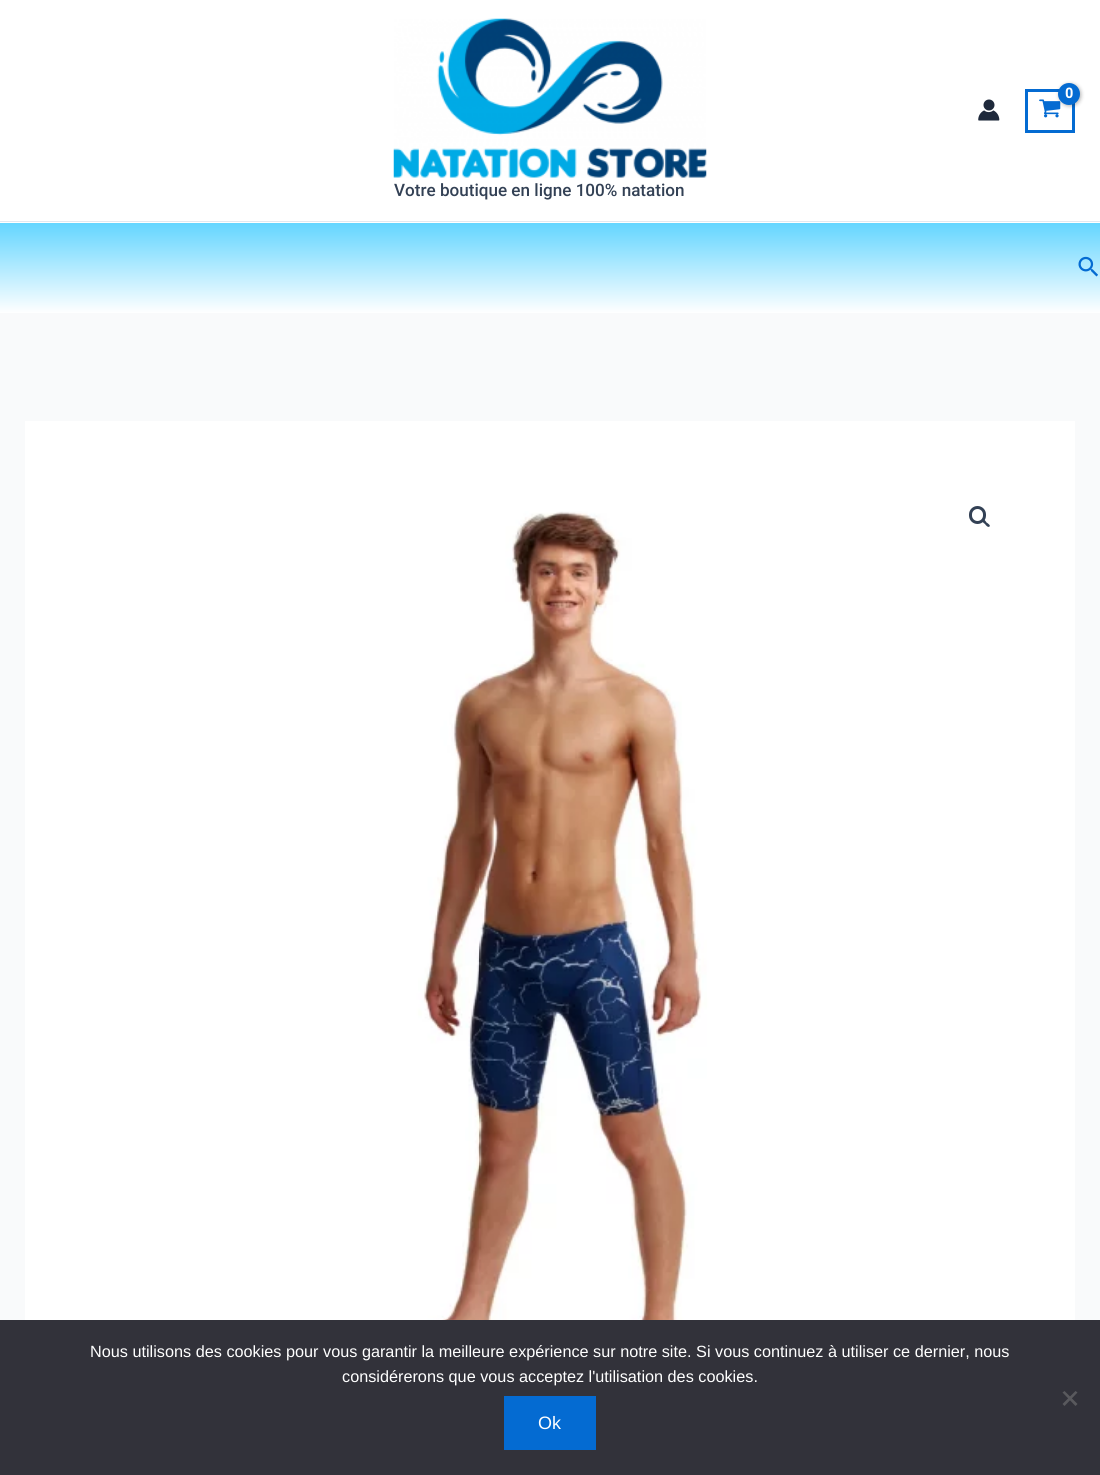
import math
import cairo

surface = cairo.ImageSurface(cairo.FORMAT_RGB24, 1100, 1475)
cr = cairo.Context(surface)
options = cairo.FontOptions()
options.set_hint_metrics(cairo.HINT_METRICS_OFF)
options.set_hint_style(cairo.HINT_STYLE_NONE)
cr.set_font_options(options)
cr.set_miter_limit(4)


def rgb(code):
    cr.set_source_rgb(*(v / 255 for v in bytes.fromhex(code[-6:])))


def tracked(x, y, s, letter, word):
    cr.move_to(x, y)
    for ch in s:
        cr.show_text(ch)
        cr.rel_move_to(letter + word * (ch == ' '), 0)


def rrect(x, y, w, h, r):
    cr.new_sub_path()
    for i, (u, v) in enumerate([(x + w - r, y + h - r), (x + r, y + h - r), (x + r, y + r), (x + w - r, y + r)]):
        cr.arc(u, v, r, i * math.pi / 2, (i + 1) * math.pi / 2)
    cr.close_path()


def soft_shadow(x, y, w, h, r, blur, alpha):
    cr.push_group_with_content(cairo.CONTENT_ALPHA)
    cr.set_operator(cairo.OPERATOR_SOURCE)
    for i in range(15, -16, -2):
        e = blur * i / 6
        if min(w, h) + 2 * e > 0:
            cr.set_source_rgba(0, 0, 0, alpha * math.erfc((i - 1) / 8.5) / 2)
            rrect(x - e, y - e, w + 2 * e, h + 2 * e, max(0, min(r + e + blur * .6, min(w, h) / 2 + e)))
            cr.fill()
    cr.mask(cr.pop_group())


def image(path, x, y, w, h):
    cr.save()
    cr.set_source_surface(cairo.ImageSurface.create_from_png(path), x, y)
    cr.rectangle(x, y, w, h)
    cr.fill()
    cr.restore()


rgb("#f9fafb")
cr.paint()
rgb("#ffffff")
cr.rectangle(0, 0, 1100, 223)
cr.fill()
rgb("#e2e8f0")
cr.rectangle(0, 221, 1100, 1)
cr.fill()
cr.rectangle(1026.5, 90.5, 47, 41)
rgb("#046bd2")
cr.set_line_width(3)
cr.stroke()
image("img/1.png", 1039, 99, 22, 19)
rgb("#000000")
soft_shadow(1059, 84, 22, 22, 11, 2, 0.3)
rgb("#046bd2")
cr.arc(1069, 94, 11, 0, 2 * math.pi)
cr.fill()
image("img/2.png", 978, 99, 22, 22)
image("img/3.png", 393, 18, 314, 160)
gradient = cairo.LinearGradient(550, 222, 550, 313)
gradient.add_color_stop_rgba(0, 0.384, 0.835, 1, 1)
gradient.add_color_stop_rgba(1, 1, 1, 1, 1)
cr.set_source(gradient)
cr.rectangle(0, 223, 1100, 90)
cr.fill()
image("img/4.png", 1078, 256, 20, 21)
rgb("#ffffff")
cr.rectangle(25, 421, 1050, 899)
cr.fill()
image("img/5.png", 386, 511, 364, 809)
rrect(970.5, 507.5, 14, 15, 7)
rgb("#334155")
cr.stroke()
cr.new_path()
cr.move_to(982.5, 519.5)
cr.curve_to(983.5, 518, 986, 521.5, 986.5, 522.5)
cr.curve_to(987.5, 523, 991, 525.5, 989.5, 526.5)
cr.curve_to(988, 528, 985.5, 525, 985, 524)
cr.curve_to(984, 523.5, 981, 521, 982.5, 519.5)
cr.close_path()
cr.fill()
rgb("#32323a")
cr.rectangle(0, 1320, 1100, 155)
cr.fill()
rgb("#59595d")
cr.new_path()
cr.move_to(1075.5, 1391)
cr.line_to(1077.5, 1392.5)
cr.line_to(1064.5, 1406)
cr.line_to(1062.5, 1404)
cr.close_path()
cr.fill()
cr.new_path()
cr.move_to(1062.5, 1392.5)
cr.line_to(1064.5, 1391)
cr.line_to(1077.5, 1404)
cr.line_to(1075.5, 1406)
cr.close_path()
cr.fill()
rgb("#046bd2")
cr.rectangle(504, 1396, 92, 54)
cr.fill()
cr.select_font_face("Roboto", cairo.FONT_SLANT_NORMAL, cairo.FONT_WEIGHT_BOLD)
cr.set_font_size(14)
rgb("#ffffff")
tracked(1065, 98, "0", -1, 0)
cr.select_font_face("Roboto Medium")
cr.set_font_size(17.1)
rgb("#334155")
cr.move_to(394, 196)
cr.show_text("Votre boutique en ligne 100% natation")
cr.select_font_face("Liberation Sans")
cr.set_font_size(16.25)
rgb("#ffffff")
cr.move_to(90, 1357)
cr.show_text("Nous utilisons des cookies pour vous garantir la meilleure expérience sur notre site. Si vous continuez à utiliser ce dernier, nous")
cr.move_to(342, 1382)
cr.show_text("considérerons que vous acceptez l'utilisation des cookies.")
cr.set_font_size(18)
cr.move_to(538, 1429)
cr.show_text("Ok")
surface.write_to_png("page.png")
